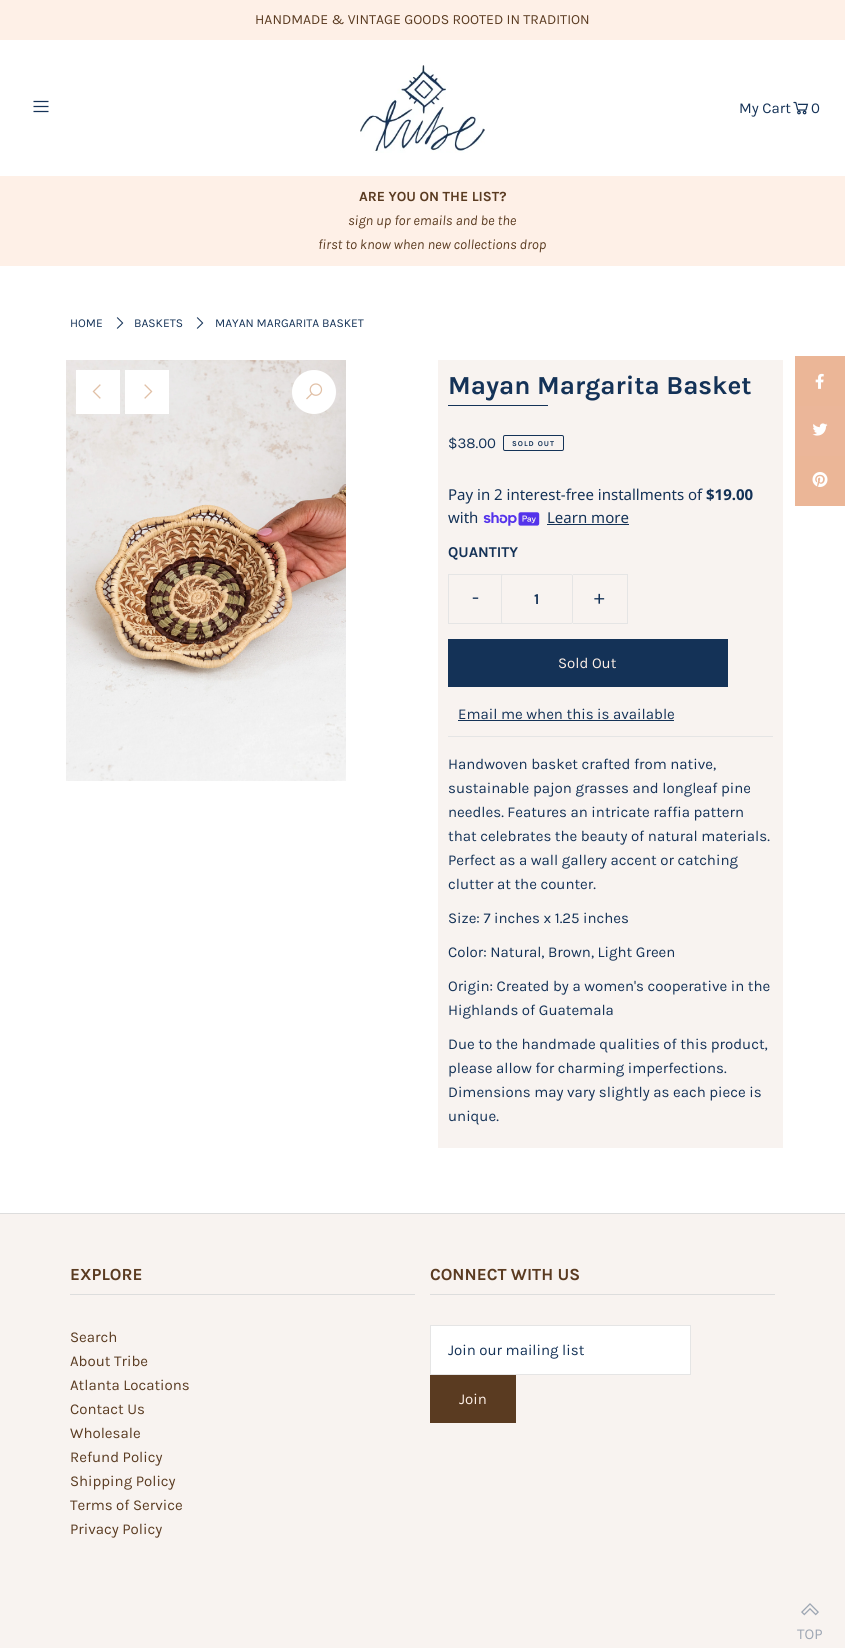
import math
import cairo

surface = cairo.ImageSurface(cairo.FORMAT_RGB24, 845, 1648)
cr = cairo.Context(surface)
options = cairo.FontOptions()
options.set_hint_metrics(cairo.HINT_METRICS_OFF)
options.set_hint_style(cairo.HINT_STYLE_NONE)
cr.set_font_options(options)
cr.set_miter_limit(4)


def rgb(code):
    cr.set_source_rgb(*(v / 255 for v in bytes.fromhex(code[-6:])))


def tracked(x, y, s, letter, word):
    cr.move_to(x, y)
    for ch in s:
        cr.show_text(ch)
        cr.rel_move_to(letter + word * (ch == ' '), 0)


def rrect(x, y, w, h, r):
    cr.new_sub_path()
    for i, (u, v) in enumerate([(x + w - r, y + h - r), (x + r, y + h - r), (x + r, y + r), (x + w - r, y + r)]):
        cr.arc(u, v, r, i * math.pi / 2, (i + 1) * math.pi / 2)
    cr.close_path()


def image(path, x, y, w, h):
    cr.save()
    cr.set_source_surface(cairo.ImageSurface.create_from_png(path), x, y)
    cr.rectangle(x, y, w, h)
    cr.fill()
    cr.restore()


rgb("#ffffff")
cr.paint()
rgb("#fef0e7")
cr.rectangle(0, 0, 845, 40)
cr.fill()
image("img/1.png", 33, 100, 16, 13)
image("img/2.png", 360, 65, 125, 88)
image("img/3.png", 793, 101, 16, 14)
cr.rectangle(0, 176, 845, 90)
cr.fill()
image("img/4.png", 116, 317, 8, 12)
image("img/4.png", 196, 317, 8, 12)
image("img/5.png", 66, 360, 280, 421)
rgb("#ffffff")
cr.arc(314, 392, 22, 0, 2 * math.pi)
cr.fill()
image("img/6.png", 306, 383, 17, 17)
cr.rectangle(76, 370, 44, 44)
cr.fill()
image("img/7.png", 92, 384, 9, 15)
cr.rectangle(125, 370, 44, 44)
cr.fill()
image("img/8.png", 144, 384, 9, 15)
for x, y, w, h, color in [
    (438, 360, 345, 788, "#f8f3f0"),
    (448, 405, 100, 1, "#143257"),
    (448, 736, 325, 1, "#e5e5e5"),
]:
    rgb(color)
    cr.rectangle(x, y, w, h)
    cr.fill()
rrect(503.5, 435.5, 60, 15, 1.5)
rgb("#143257")
cr.set_line_width(1)
cr.stroke()
image("img/9.png", 483, 512, 57, 14)
for x, y, w, h, color in [
    (547, 524, 82, 1, "#143257"),
    (448, 574, 55, 1, "#e5e5e5"),
    (448, 623, 55, 1, "#e5e5e5"),
    (448, 574, 1, 50, "#e5e5e5"),
]:
    rgb(color)
    cr.rectangle(x, y, w, h)
    cr.fill()
rrect(501.5, 574.5, 71, 49, 1.5)
cr.stroke()
for x, y, w, h, color in [
    (573, 574, 55, 1, "#e5e5e5"),
    (627, 574, 1, 50, "#e5e5e5"),
    (573, 623, 55, 1, "#e5e5e5"),
    (448, 639, 280, 48, "#143257"),
    (458, 720, 216, 1, "#143257"),
    (795, 356, 50, 50, "#ebb697"),
]:
    rgb(color)
    cr.rectangle(x, y, w, h)
    cr.fill()
image("img/10.png", 815, 373, 9, 16)
rgb("#ebb699")
cr.rectangle(795, 406, 50, 50)
cr.fill()
image("img/11.png", 812, 423, 16, 13)
rgb("#ebb697")
cr.rectangle(795, 456, 50, 50)
cr.fill()
image("img/12.png", 812, 472, 16, 15)
for x, y, w, h, color in [
    (0, 1214, 845, 434, "#f8f3f0"),
    (0, 1213, 845, 1, "#dddddd"),
    (70, 1294, 345, 1, "#dddddd"),
    (430, 1294, 345, 1, "#dddddd"),
]:
    rgb(color)
    cr.rectangle(x, y, w, h)
    cr.fill()
rgb("#ffffff")
cr.rectangle(430.5, 1325.5, 260, 49)
cr.fill_preserve()
rgb("#e5e5e5")
cr.stroke()
rgb("#5a3b21")
cr.rectangle(430, 1375, 86, 48)
cr.fill()
image("img/13.png", 801, 1603, 18, 13)
cr.select_font_face("Karla")
cr.set_font_size(14)
cr.move_to(255, 24)
cr.show_text("HANDMADE & VINTAGE GOODS ROOTED IN TRADITION")
cr.set_font_size(15)
rgb("#143257")
cr.move_to(739, 113)
cr.show_text("My Cart")
cr.move_to(811, 113)
cr.show_text("0")
cr.select_font_face("Karla", cairo.FONT_SLANT_NORMAL, cairo.FONT_WEIGHT_BOLD)
cr.set_font_size(14)
rgb("#5a3b21")
cr.move_to(359, 201)
cr.show_text("ARE YOU ON THE LIST?")
cr.select_font_face("Karla", cairo.FONT_SLANT_ITALIC)
cr.move_to(348, 225)
cr.show_text("sign up for emails and be the")
cr.move_to(318, 249)
cr.show_text("first to know when new collections drop")
cr.select_font_face("Karla")
cr.set_font_size(12)
rgb("#143257")
for x, y, s in [
    (70, 327, "HOME"),
    (134, 327, "BASKETS"),
    (215, 327, "MAYAN MARGARITA BASKET"),
]:
    cr.move_to(x, y)
    cr.show_text(s)
cr.select_font_face("Karla", cairo.FONT_SLANT_NORMAL, cairo.FONT_WEIGHT_BOLD)
cr.set_font_size(26)
cr.move_to(448, 394)
cr.show_text("Mayan Margarita Basket")
cr.select_font_face("Karla")
cr.set_font_size(15)
cr.move_to(448, 448)
cr.show_text("$38.00")
cr.select_font_face("Karla", cairo.FONT_SLANT_NORMAL, cairo.FONT_WEIGHT_BOLD)
cr.set_font_size(7.5)
tracked(512, 446, "SOLD OUT", 1, 0)
cr.select_font_face("Noto Sans")
cr.set_font_size(15)
cr.move_to(448, 500)
cr.show_text("Pay in 2 interest-free installments of")
cr.select_font_face("Noto Sans", cairo.FONT_SLANT_NORMAL, cairo.FONT_WEIGHT_BOLD)
cr.move_to(706, 500)
cr.show_text("$19.00")
cr.select_font_face("Noto Sans")
cr.move_to(448, 523)
cr.show_text("with")
cr.move_to(547, 523)
cr.show_text("Learn more")
cr.select_font_face("Karla", cairo.FONT_SLANT_NORMAL, cairo.FONT_WEIGHT_BOLD)
cr.move_to(448, 557)
cr.show_text("QUANTITY")
cr.select_font_face("Karla")
cr.set_font_size(20)
cr.move_to(472, 604)
cr.show_text("-")
cr.select_font_face("Karla", cairo.FONT_SLANT_NORMAL, cairo.FONT_WEIGHT_BOLD)
cr.set_font_size(15)
cr.move_to(534, 604)
cr.show_text("1")
cr.select_font_face("Karla")
cr.set_font_size(20)
cr.move_to(594, 604)
cr.show_text("+")
cr.set_font_size(15)
rgb("#fef0e7")
cr.move_to(558, 668)
cr.show_text("Sold Out")
rgb("#143257")
for x, y, s in [
    (458, 719, "Email me when this is available"),
    (448, 769, "Handwoven basket crafted from native,"),
    (448, 793, "sustainable pajon grasses and longleaf pine"),
    (448, 817, "needles. Features an intricate raffia pattern"),
    (448, 841, "that celebrates the beauty of natural materials."),
    (448, 865, "Perfect as a wall gallery accent or catching"),
    (448, 889, "clutter at the counter."),
    (448, 923, "Size: 7 inches x 1.25 inches"),
    (448, 957, "Color: Natural, Brown, Light Green"),
    (448, 991, "Origin: Created by a women's cooperative in the"),
    (448, 1015, "Highlands of Guatemala"),
    (448, 1049, "Due to the handmade qualities of this product,"),
    (448, 1073, "please allow for charming imperfections."),
    (448, 1097, "Dimensions may vary slightly as each piece is"),
    (448, 1121, "unique."),
]:
    cr.move_to(x, y)
    cr.show_text(s)
cr.select_font_face("Karla", cairo.FONT_SLANT_NORMAL, cairo.FONT_WEIGHT_BOLD)
cr.set_font_size(17)
rgb("#5a3b21")
cr.move_to(70, 1280)
cr.show_text("EXPLORE")
cr.select_font_face("Karla")
cr.set_font_size(15)
for x, y, s in [
    (70, 1342, "Search"),
    (70, 1366, "About Tribe"),
    (70, 1390, "Atlanta Locations"),
    (70, 1414, "Contact Us"),
    (70, 1438, "Wholesale"),
    (70, 1462, "Refund Policy"),
    (70, 1486, "Shipping Policy"),
    (70, 1510, "Terms of Service"),
    (70, 1534, "Privacy Policy"),
]:
    cr.move_to(x, y)
    cr.show_text(s)
cr.select_font_face("Karla", cairo.FONT_SLANT_NORMAL, cairo.FONT_WEIGHT_BOLD)
cr.set_font_size(17)
cr.move_to(430, 1280)
cr.show_text("CONNECT WITH US")
cr.select_font_face("Karla")
cr.set_font_size(15)
rgb("#143257")
cr.move_to(448, 1355)
cr.show_text("Join our mailing list")
rgb("#fef0e7")
cr.move_to(459, 1404)
cr.show_text("Join")
rgb("#9da6b3")
cr.move_to(797, 1639)
cr.show_text("TOP")
surface.write_to_png("page.png")
